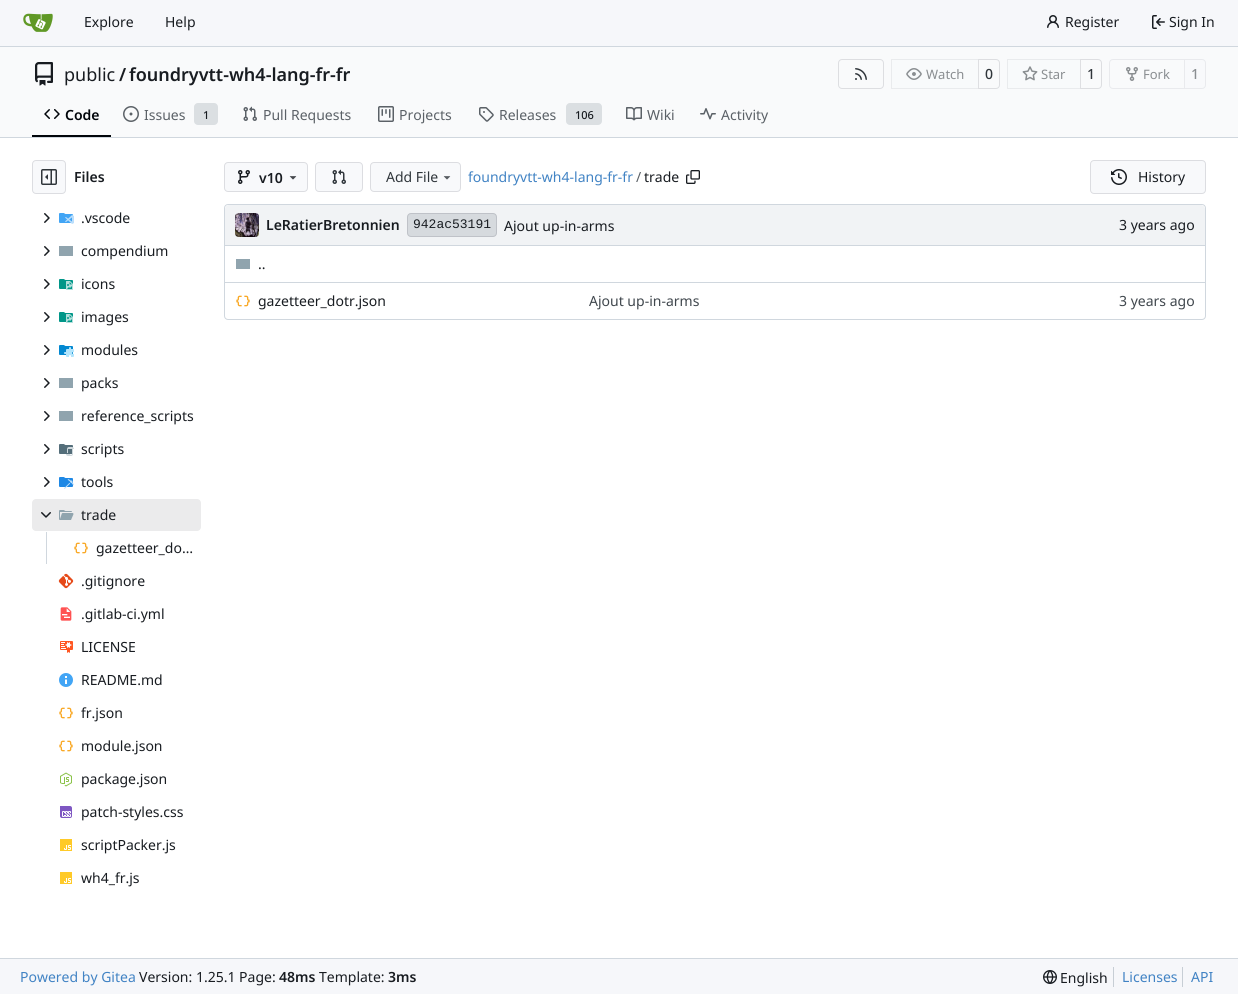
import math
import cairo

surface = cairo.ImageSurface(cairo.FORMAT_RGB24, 1238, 994)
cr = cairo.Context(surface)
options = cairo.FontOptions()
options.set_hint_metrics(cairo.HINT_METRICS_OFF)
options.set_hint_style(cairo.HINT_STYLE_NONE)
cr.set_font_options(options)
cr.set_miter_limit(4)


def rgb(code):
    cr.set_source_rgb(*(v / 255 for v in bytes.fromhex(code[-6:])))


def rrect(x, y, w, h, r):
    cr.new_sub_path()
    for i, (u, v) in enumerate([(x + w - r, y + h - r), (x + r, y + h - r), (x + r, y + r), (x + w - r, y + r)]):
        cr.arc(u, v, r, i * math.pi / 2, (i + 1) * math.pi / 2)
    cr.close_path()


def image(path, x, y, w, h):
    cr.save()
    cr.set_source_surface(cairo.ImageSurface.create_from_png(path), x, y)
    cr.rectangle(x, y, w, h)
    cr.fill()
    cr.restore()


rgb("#ffffff")
cr.paint()
rgb("#f6f7fa")
cr.rectangle(0, 0, 1238, 46)
cr.fill()
rgb("#d0d7de")
cr.rectangle(0, 46, 1238, 1)
cr.fill()
image("img/1.png", 23, 13, 30, 19)
image("img/2.png", 1047, 15, 12, 13)
image("img/3.png", 1152, 15, 13, 14)
rgb("#f9fafb")
cr.rectangle(0, 47, 1238, 90)
cr.fill()
image("img/4.png", 35, 62, 18, 24)
rrect(838.5, 59.5, 45, 29, 3.5)
rgb("#dddee1")
cr.set_line_width(1)
cr.stroke()
image("img/5.png", 855, 68, 12, 12)
cr.new_path()
cr.move_to(978.5, 59.5)
cr.line_to(996, 59.5)
cr.curve_to(998, 59.5, 999.5, 61, 999.5, 63)
cr.line_to(999.5, 85)
cr.curve_to(999.5, 87, 998, 88.5, 996, 88.5)
cr.line_to(978.5, 88.5)
cr.close_path()
cr.stroke()
cr.set_source_rgba(0.973, 0.976, 0.984, 0.55)
cr.new_path()
cr.move_to(895, 59)
cr.line_to(979, 59)
cr.line_to(979, 89)
cr.line_to(895, 89)
cr.curve_to(893, 89, 891, 87, 891, 85)
cr.line_to(891, 63)
cr.curve_to(891, 61, 893, 59, 895, 59)
cr.close_path()
cr.fill()
cr.rectangle(891.5, 59.5, 87, 29)
cr.set_source_rgba(0, 0, 0.09, 0.06)
cr.stroke()
image("img/6.png", 906, 68, 16, 12)
cr.new_path()
cr.move_to(1080.5, 59.5)
cr.line_to(1098, 59.5)
cr.curve_to(1100, 59.5, 1101.5, 61, 1101.5, 63)
cr.line_to(1101.5, 85)
cr.curve_to(1101.5, 87, 1100, 88.5, 1098, 88.5)
cr.line_to(1080.5, 88.5)
cr.close_path()
rgb("#dddee1")
cr.stroke()
cr.set_source_rgba(0.973, 0.976, 0.984, 0.55)
cr.new_path()
cr.move_to(1011, 59)
cr.line_to(1081, 59)
cr.line_to(1081, 89)
cr.line_to(1011, 89)
cr.curve_to(1009, 89, 1007, 87, 1007, 85)
cr.line_to(1007, 63)
cr.curve_to(1007, 61, 1009, 59, 1011, 59)
cr.close_path()
cr.fill()
cr.rectangle(1007.5, 59.5, 73, 29)
cr.set_source_rgba(0, 0, 0.09, 0.06)
cr.stroke()
image("img/7.png", 1022, 66, 16, 15)
cr.new_path()
cr.move_to(1113, 59.5)
cr.line_to(1184.5, 59.5)
cr.line_to(1184.5, 88.5)
cr.line_to(1113, 88.5)
cr.curve_to(1111, 88.5, 1109.5, 87, 1109.5, 85)
cr.line_to(1109.5, 63)
cr.curve_to(1109.5, 61, 1111, 59.5, 1113, 59.5)
cr.close_path()
rgb("#e9eaed")
cr.stroke()
image("img/8.png", 1126, 67, 12, 14)
rgb("#f8f9fb")
cr.new_path()
cr.move_to(1184.5, 59.5)
cr.line_to(1202, 59.5)
cr.curve_to(1204, 59.5, 1205.5, 61, 1205.5, 63)
cr.line_to(1205.5, 85)
cr.curve_to(1205.5, 87, 1204, 88.5, 1202, 88.5)
cr.line_to(1184.5, 88.5)
cr.close_path()
cr.fill_preserve()
rgb("#e9eaed")
cr.stroke()
rgb("#01050a")
cr.rectangle(32, 135, 79, 2)
cr.fill()
image("img/9.png", 44, 109, 16, 10)
image("img/10.png", 123, 106, 16, 16)
rgb("#dbdfe2")
rrect(194, 103, 24, 22, 4)
cr.fill()
image("img/11.png", 243, 106, 14, 15)
image("img/12.png", 378, 106, 16, 16)
image("img/13.png", 479, 107, 15, 15)
rrect(566, 103, 36, 22, 4)
cr.fill()
image("img/14.png", 626, 107, 16, 14)
image("img/15.png", 700, 108, 16, 12)
rgb("#d0d7de")
cr.rectangle(0, 137, 1238, 1)
cr.fill()
rgb("#f8f9fb")
rrect(32.5, 160.5, 33, 33, 3.5)
cr.fill_preserve()
rgb("#dcdde1")
cr.stroke()
image("img/16.png", 41, 169, 16, 16)
image("img/17.png", 44, 213, 6, 10)
image("img/18.png", 59, 213, 15, 11)
image("img/17.png", 44, 246, 6, 10)
rgb("#90a4ae")
cr.rectangle(59, 246, 14, 10)
cr.fill()
image("img/17.png", 44, 279, 6, 10)
image("img/19.png", 59, 279, 14, 11)
image("img/17.png", 44, 312, 6, 10)
image("img/19.png", 59, 312, 14, 11)
image("img/17.png", 44, 345, 6, 10)
image("img/20.png", 59, 345, 15, 12)
image("img/17.png", 44, 378, 6, 10)
cr.rectangle(59, 378, 14, 10)
cr.fill()
image("img/17.png", 44, 411, 6, 10)
cr.rectangle(59, 411, 14, 10)
cr.fill()
image("img/17.png", 44, 444, 6, 10)
image("img/21.png", 59, 444, 15, 12)
image("img/17.png", 44, 477, 6, 10)
image("img/22.png", 59, 477, 15, 12)
rgb("#ebebec")
rrect(32, 499, 169, 32, 4)
cr.fill()
image("img/23.png", 41, 512, 10, 6)
image("img/24.png", 59, 510, 15, 10)
rgb("#d0d7de")
cr.rectangle(46, 532, 1, 32)
cr.fill()
image("img/25.png", 74, 542, 14, 12)
image("img/26.png", 58, 573, 16, 16)
image("img/27.png", 60, 607, 12, 14)
image("img/28.png", 60, 641, 13, 12)
image("img/29.png", 59, 673, 14, 14)
image("img/25.png", 59, 707, 14, 12)
image("img/25.png", 59, 740, 14, 12)
image("img/30.png", 60, 772, 12, 15)
image("img/31.png", 60, 806, 12, 12)
image("img/32.png", 60, 839, 12, 12)
image("img/32.png", 60, 872, 12, 12)
rgb("#f8f9fb")
rrect(224.5, 162.5, 83, 29, 3.5)
cr.fill_preserve()
rgb("#dcdde1")
cr.stroke()
image("img/33.png", 238, 170, 12, 14)
image("img/34.png", 289, 176, 8, 4)
rgb("#f8f9fb")
rrect(315.5, 162.5, 47, 29, 3.5)
cr.fill_preserve()
rgb("#dcdde1")
cr.stroke()
image("img/35.png", 332, 169, 14, 15)
rgb("#f8f9fb")
rrect(370.5, 162.5, 90, 29, 3.5)
cr.fill_preserve()
rgb("#dcdde1")
cr.stroke()
image("img/36.png", 443, 176, 8, 4)
image("img/37.png", 686, 170, 14, 14)
rgb("#f8f9fb")
rrect(1090.5, 160.5, 115, 33, 3.5)
cr.fill_preserve()
rgb("#dcdde1")
cr.stroke()
image("img/38.png", 1111, 169, 16, 16)
rrect(224.5, 204.5, 981, 115, 3.5)
rgb("#d0d7de")
cr.stroke()
rgb("#f1f3f5")
cr.new_path()
cr.move_to(229, 205)
cr.line_to(1201, 205)
cr.curve_to(1203, 205, 1205, 207, 1205, 209)
cr.line_to(1205, 245)
cr.line_to(225, 245)
cr.line_to(225, 209)
cr.curve_to(225, 207, 227, 205, 229, 205)
cr.close_path()
cr.fill()
image("img/39.png", 235, 213, 24, 24)
rgb("#d6dade")
rrect(407, 213, 90, 24, 4)
cr.fill()
rrect(407.5, 213.5, 89, 23, 3.5)
cr.set_source_rgba(0, 0, 0.09, 0.11)
cr.stroke()
for x, y, w, h, color in [
    (225, 245, 980, 1, "#d0d7de"),
    (236, 259, 14, 10, "#90a4ae"),
    (225, 282, 884, 1, "#d0d7de"),
]:
    rgb(color)
    cr.rectangle(x, y, w, h)
    cr.fill()
image("img/25.png", 236, 295, 14, 12)
for x, y, w, h, color in [
    (1109, 282, 96, 1, "#d0d7de"),
    (0, 959, 1238, 35, "#f6f7fa"),
    (0, 958, 1238, 1, "#d0d7de"),
]:
    rgb(color)
    cr.rectangle(x, y, w, h)
    cr.fill()
image("img/40.png", 1043, 970, 14, 14)
rgb("#c7ced5")
cr.rectangle(1113, 967, 1, 20)
cr.fill()
cr.rectangle(1182, 967, 1, 20)
cr.fill()
cr.select_font_face("Noto Sans")
cr.set_font_size(14)
rgb("#181c21")
for x, y, s in [
    (84, 27, "Explore"),
    (165, 27, "Help"),
    (1065, 27, "Register"),
    (1169, 27, "Sign In"),
]:
    cr.move_to(x, y)
    cr.show_text(s)
cr.set_font_size(18)
cr.move_to(64, 81)
cr.show_text("public")
cr.select_font_face("Noto Sans SemiBold")
cr.move_to(119, 81)
cr.show_text("/")
cr.move_to(129, 81)
cr.show_text("foundryvtt-wh4-lang-fr-fr")
cr.select_font_face("Noto Sans")
cr.set_font_size(13)
rgb("#8a8e91")
cr.move_to(926, 79)
cr.show_text("Watch")
cr.select_font_face("Noto Sans Medium")
cr.set_font_size(14)
rgb("#30363b")
cr.move_to(985, 79)
cr.show_text("0")
cr.select_font_face("Noto Sans")
cr.set_font_size(13)
rgb("#8a8e91")
cr.move_to(1041, 79)
cr.show_text("Star")
cr.select_font_face("Noto Sans Medium")
cr.set_font_size(14)
rgb("#30363b")
cr.move_to(1087, 79)
cr.show_text("1")
cr.select_font_face("Noto Sans")
cr.set_font_size(13)
rgb("#8a8e91")
cr.move_to(1143, 79)
cr.show_text("Fork")
cr.select_font_face("Noto Sans Medium")
cr.set_font_size(14)
cr.move_to(1191, 79)
cr.show_text("1")
cr.select_font_face("Noto Sans SemiBold")
rgb("#01050a")
cr.move_to(65, 120)
cr.show_text("Code")
cr.select_font_face("Noto Sans")
rgb("#5b6167")
cr.move_to(144, 120)
cr.show_text("Issues")
cr.select_font_face("Noto Sans Medium")
cr.set_font_size(11)
rgb("#181c21")
cr.move_to(203, 119)
cr.show_text("1")
cr.select_font_face("Noto Sans")
cr.set_font_size(14)
rgb("#5b6167")
for x, y, s in [
    (263, 120, "Pull Requests"),
    (399, 120, "Projects"),
    (499, 120, "Releases"),
]:
    cr.move_to(x, y)
    cr.show_text(s)
cr.select_font_face("Noto Sans Medium")
cr.set_font_size(11)
rgb("#181c21")
cr.move_to(575, 119)
cr.show_text("106")
cr.select_font_face("Noto Sans")
cr.set_font_size(14)
rgb("#5b6167")
cr.move_to(647, 120)
cr.show_text("Wiki")
cr.move_to(721, 120)
cr.show_text("Activity")
cr.select_font_face("Noto Sans SemiBold")
rgb("#181c21")
cr.move_to(74, 182)
cr.show_text("Files")
cr.select_font_face("Noto Sans")
for x, y, s in [
    (81, 223, ".vscode"),
    (81, 256, "compendium"),
    (81, 289, "icons"),
    (81, 322, "images"),
    (81, 355, "modules"),
    (81, 388, "packs"),
    (81, 421, "reference_scripts"),
    (81, 454, "scripts"),
    (81, 487, "tools"),
    (81, 520, "trade"),
    (96, 553, "gazetteer_do…"),
    (81, 586, ".gitignore"),
    (81, 619, ".gitlab-ci.yml"),
    (81, 652, "LICENSE"),
    (81, 685, "README.md"),
    (81, 718, "fr.json"),
    (81, 751, "module.json"),
    (81, 784, "package.json"),
    (81, 817, "patch-styles.css"),
    (81, 850, "scriptPacker.js"),
    (81, 883, "wh4_fr.js"),
]:
    cr.move_to(x, y)
    cr.show_text(s)
cr.select_font_face("Noto Sans SemiBold")
cr.move_to(259, 183)
cr.show_text("v10")
cr.select_font_face("Noto Sans")
rgb("#30363b")
cr.move_to(386, 182)
cr.show_text("Add File")
rgb("#4183c4")
cr.move_to(468, 182)
cr.show_text("foundryvtt-wh4-lang-fr-fr")
rgb("#5b6167")
cr.move_to(636, 182)
cr.show_text("/")
rgb("#181c21")
cr.move_to(644, 182)
cr.show_text("trade")
cr.move_to(1138, 182)
cr.show_text("History")
cr.select_font_face("Noto Sans SemiBold")
cr.move_to(266, 230)
cr.show_text("LeRatierBretonnien")
cr.select_font_face("Liberation Mono")
cr.set_font_size(13)
cr.move_to(413, 228)
cr.show_text("942ac53191")
cr.select_font_face("Noto Sans")
cr.set_font_size(14)
for x, y, s in [
    (504, 231, "Ajout up-in-arms"),
    (1119, 230, "3 years ago"),
    (258, 269, ".."),
    (258, 306, "gazetteer_dotr.json"),
]:
    cr.move_to(x, y)
    cr.show_text(s)
rgb("#40474d")
cr.move_to(589, 306)
cr.show_text("Ajout up-in-arms")
cr.move_to(1119, 306)
cr.show_text("3 years ago")
rgb("#4183c4")
cr.move_to(20, 982)
cr.show_text("Powered by Gitea")
rgb("#181c21")
cr.move_to(139, 982)
cr.show_text("Version: 1.25.1 Page:")
cr.select_font_face("Noto Sans SemiBold")
cr.move_to(279, 982)
cr.show_text("48ms")
cr.select_font_face("Noto Sans")
cr.move_to(319, 982)
cr.show_text("Template:")
cr.select_font_face("Noto Sans SemiBold")
cr.move_to(388, 982)
cr.show_text("3ms")
cr.select_font_face("Noto Sans")
cr.move_to(1060, 983)
cr.show_text("English")
rgb("#4183c4")
cr.move_to(1122, 982)
cr.show_text("Licenses")
cr.move_to(1191, 982)
cr.show_text("API")
surface.write_to_png("page.png")
